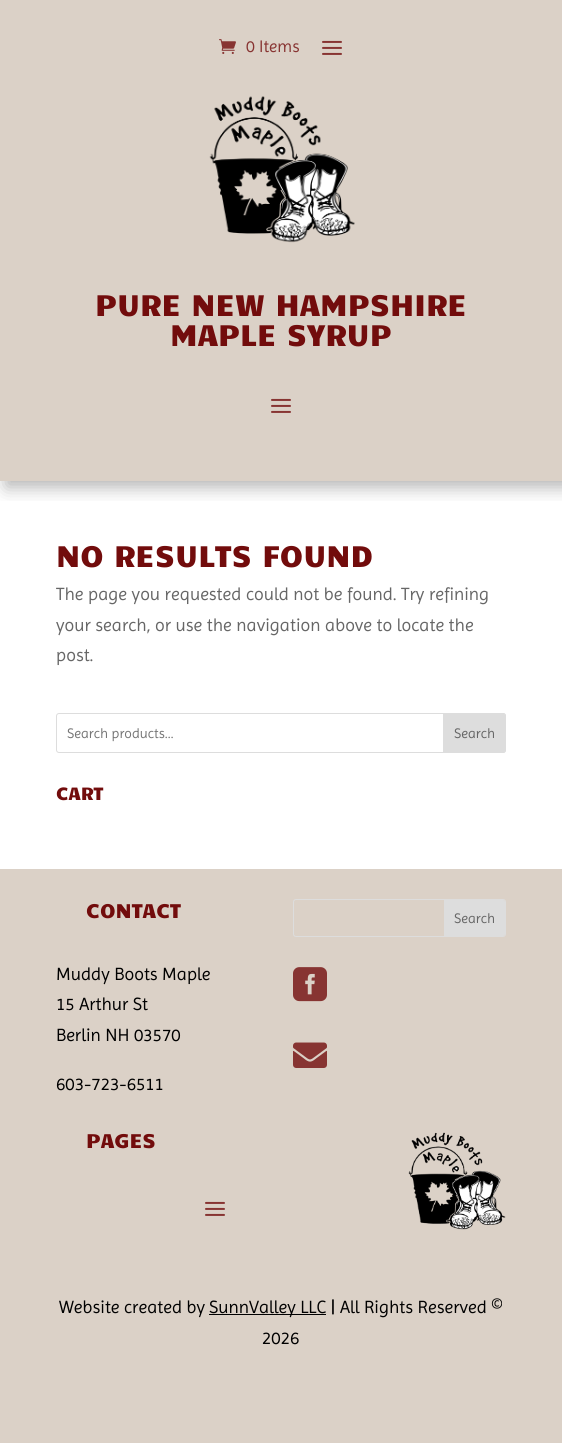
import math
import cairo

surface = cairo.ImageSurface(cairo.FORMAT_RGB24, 562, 1443)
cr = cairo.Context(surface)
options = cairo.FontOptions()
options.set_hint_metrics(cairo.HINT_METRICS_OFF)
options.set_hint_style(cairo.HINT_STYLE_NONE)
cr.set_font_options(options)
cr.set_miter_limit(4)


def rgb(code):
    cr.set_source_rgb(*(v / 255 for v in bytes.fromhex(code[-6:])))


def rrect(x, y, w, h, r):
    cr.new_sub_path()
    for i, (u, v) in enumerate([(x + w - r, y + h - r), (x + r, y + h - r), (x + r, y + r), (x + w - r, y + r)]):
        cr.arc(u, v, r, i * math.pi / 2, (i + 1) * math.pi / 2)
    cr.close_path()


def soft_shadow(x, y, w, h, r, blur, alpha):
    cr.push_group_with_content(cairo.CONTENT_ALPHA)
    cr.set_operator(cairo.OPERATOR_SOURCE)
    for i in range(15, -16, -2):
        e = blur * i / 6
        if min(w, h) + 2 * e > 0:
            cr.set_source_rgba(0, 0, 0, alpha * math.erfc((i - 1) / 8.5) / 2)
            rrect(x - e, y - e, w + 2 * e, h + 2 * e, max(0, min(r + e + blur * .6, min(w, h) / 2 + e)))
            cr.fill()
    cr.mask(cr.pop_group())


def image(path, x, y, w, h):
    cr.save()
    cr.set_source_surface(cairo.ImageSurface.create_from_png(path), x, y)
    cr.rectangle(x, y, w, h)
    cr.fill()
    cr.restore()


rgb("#dbd1c7")
cr.paint()
rgb("#ffffff")
cr.rectangle(0, 481, 562, 388)
cr.fill()
cr.save()
cr.rectangle(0, 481, 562, 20)
cr.clip()
rgb("#000000")
soft_shadow(6, 6, 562, 481, 0, 9, 0.3)
cr.restore()
image("img/1.png", 219, 39, 17, 15)
image("img/2.png", 322, 40, 20, 15)
image("img/3.png", 209, 96, 146, 147)
image("img/2.png", 271, 398, 20, 15)
rrect(56.5, 713.5, 449, 39, 2.5)
rgb("#dddddd")
cr.set_line_width(1)
cr.stroke()
cr.new_path()
cr.move_to(443.5, 713.5)
cr.line_to(503, 713.5)
cr.curve_to(504.5, 713.5, 505.5, 714.5, 505.5, 716)
cr.line_to(505.5, 750)
cr.curve_to(505.5, 751.5, 504.5, 752.5, 503, 752.5)
cr.line_to(443.5, 752.5)
cr.close_path()
cr.fill_preserve()
cr.stroke()
rrect(293.5, 899.5, 212, 37, 2.5)
cr.stroke()
cr.new_path()
cr.move_to(444, 900)
cr.line_to(503, 900)
cr.curve_to(504, 900, 505, 901, 505, 902)
cr.line_to(505, 934)
cr.curve_to(505, 935, 504, 936, 503, 936)
cr.line_to(444, 936)
cr.close_path()
cr.fill()
image("img/4.png", 293, 967, 34, 35)
image("img/5.png", 293, 1042, 34, 26)
image("img/2.png", 205, 1201, 20, 15)
image("img/6.png", 408, 1132, 98, 98)
rgb("#000000")
cr.rectangle(209, 1314, 117, 1)
cr.fill()
cr.select_font_face("Imprima")
cr.set_font_size(17)
rgb("#873331")
cr.move_to(246, 52)
cr.show_text("0 Items")
cr.select_font_face("Candal")
cr.set_font_size(30)
rgb("#720c0c")
for x, y, s in [
    (95, 316, "PURE NEW HAMPSHIRE"),
    (170, 346, "MAPLE SYRUP"),
    (56, 567, "NO RESULTS FOUND"),
]:
    cr.move_to(x, y)
    cr.show_text(s)
cr.select_font_face("Imprima")
cr.set_font_size(18)
rgb("#666666")
for x, y, s in [
    (56, 600, "The page you requested could not be found. Try refining"),
    (56, 631, "your search, or use the navigation above to locate the"),
    (56, 661, "post."),
]:
    cr.move_to(x, y)
    cr.show_text(s)
cr.set_font_size(14)
rgb("#757575")
cr.move_to(67, 738)
cr.show_text("Search products…")
rgb("#666666")
cr.move_to(454, 738)
cr.show_text("Search")
cr.select_font_face("Candal")
cr.set_font_size(18)
rgb("#720c0c")
cr.move_to(56, 800)
cr.show_text("CART")
cr.set_font_size(20)
cr.move_to(86, 918)
cr.show_text("CONTACT")
cr.select_font_face("Imprima")
cr.set_font_size(18)
rgb("#000000")
for x, y, s in [
    (56, 980, "Muddy Boots Maple"),
    (56, 1010, "15 Arthur St"),
    (56, 1041, "Berlin NH 03570"),
    (56, 1090, "603-723-6511"),
]:
    cr.move_to(x, y)
    cr.show_text(s)
cr.set_font_size(14)
rgb("#666666")
cr.move_to(454, 923)
cr.show_text("Search")
cr.select_font_face("Candal")
cr.set_font_size(20)
rgb("#720c0c")
cr.move_to(86, 1148)
cr.show_text("PAGES")
cr.select_font_face("Imprima")
cr.set_font_size(18)
rgb("#000000")
for x, y, s in [
    (59, 1313, "Website created by"),
    (209, 1313, "SunnValley LLC | All Rights Reserved ©"),
    (262, 1344, "2026"),
]:
    cr.move_to(x, y)
    cr.show_text(s)
surface.write_to_png("page.png")
